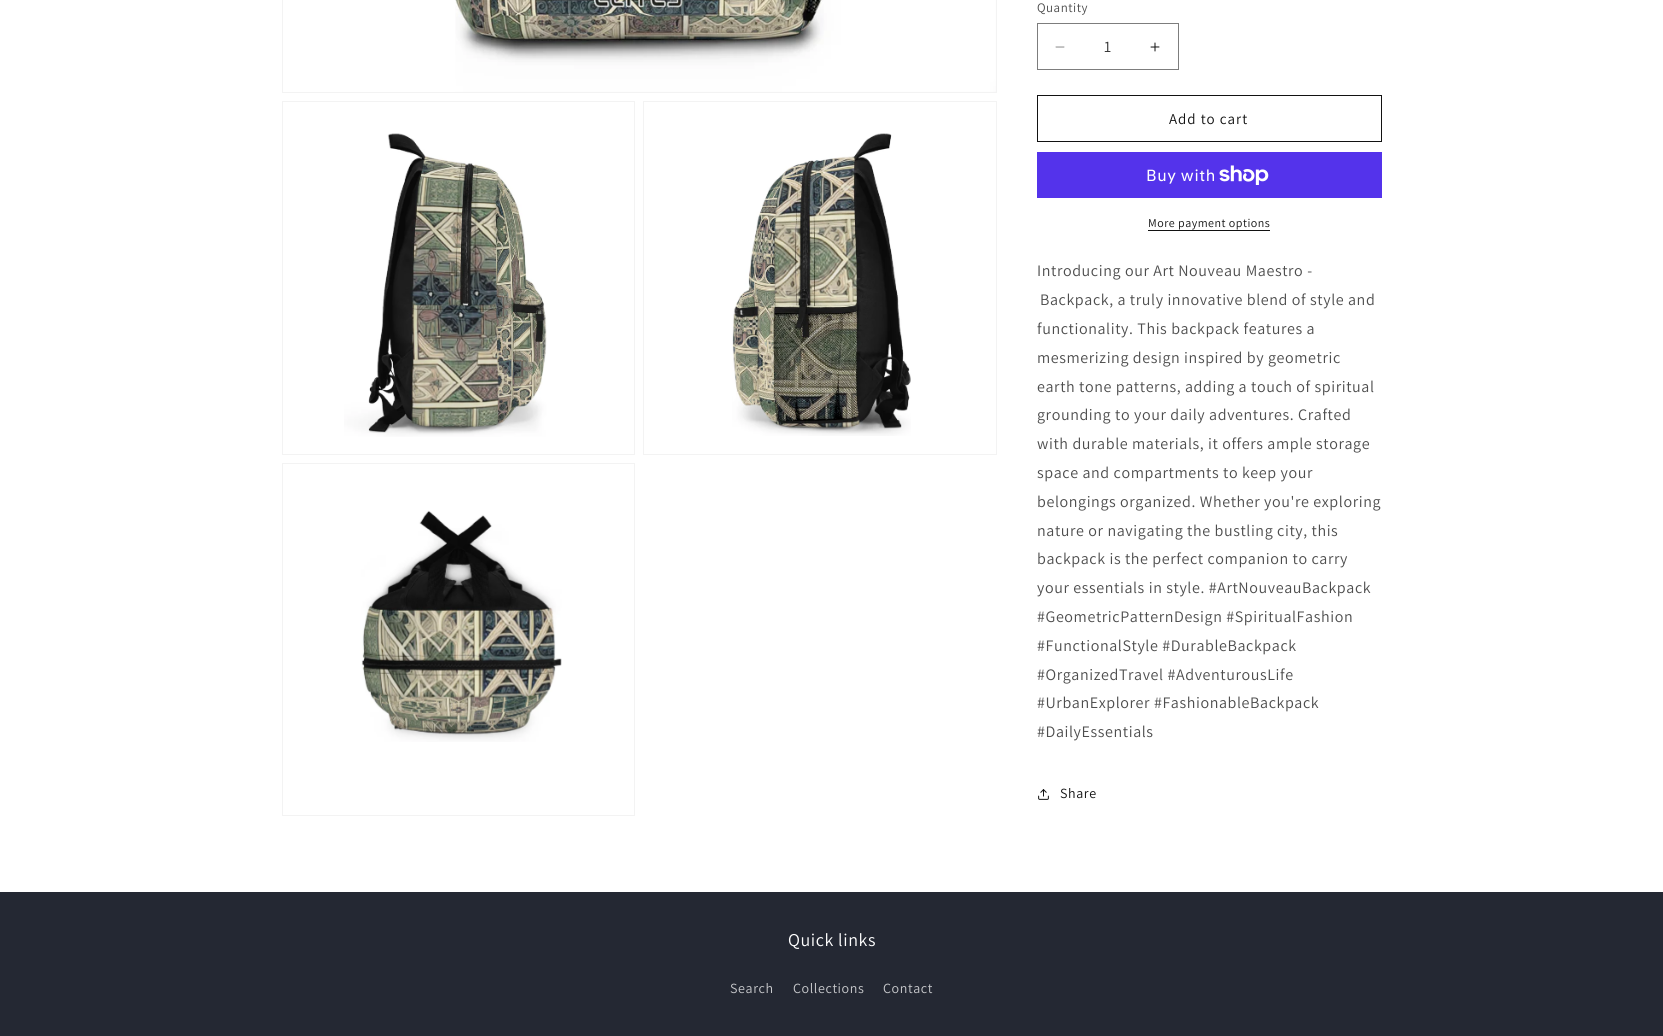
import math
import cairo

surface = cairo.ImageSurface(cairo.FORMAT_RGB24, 1663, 1036)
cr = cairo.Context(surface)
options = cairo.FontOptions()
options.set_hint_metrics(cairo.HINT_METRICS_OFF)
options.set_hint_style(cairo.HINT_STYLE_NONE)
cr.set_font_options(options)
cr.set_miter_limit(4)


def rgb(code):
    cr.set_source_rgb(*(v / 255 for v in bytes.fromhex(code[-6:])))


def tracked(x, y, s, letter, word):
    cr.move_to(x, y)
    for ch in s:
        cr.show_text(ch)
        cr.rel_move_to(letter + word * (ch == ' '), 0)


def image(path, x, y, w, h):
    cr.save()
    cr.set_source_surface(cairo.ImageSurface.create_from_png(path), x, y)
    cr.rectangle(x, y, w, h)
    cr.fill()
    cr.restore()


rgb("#ffffff")
cr.paint()
cr.rectangle(282.5, -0.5, 714, 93)
rgb("#f3f3f3")
cr.set_line_width(1)
cr.stroke()
image("img/1.png", 455, 0, 541, 92)
cr.rectangle(282.5, 101.5, 352, 353)
cr.stroke()
image("img/2.png", 344, 133, 203, 304)
cr.rectangle(643.5, 101.5, 353, 353)
cr.stroke()
image("img/3.png", 732, 133, 179, 303)
cr.rectangle(282.5, 463.5, 352, 352)
cr.stroke()
image("img/4.png", 361, 510, 201, 232)
image("img/5.png", 1055, 46, 10, 2)
image("img/6.png", 1150, 42, 10, 10)
cr.rectangle(1037.5, 23.5, 141, 46)
rgb("#7d7d7d")
cr.stroke()
cr.rectangle(1037.5, 95.5, 344, 46)
rgb("#121212")
cr.stroke()
rgb("#5433eb")
cr.rectangle(1037, 152, 345, 46)
cr.fill()
image("img/7.png", 1219, 165, 50, 20)
rgb("#121212")
cr.rectangle(1148, 230, 122, 1)
cr.fill()
image("img/8.png", 1038, 789, 11, 11)
rgb("#242833")
cr.rectangle(0, 892, 1663, 144)
cr.fill()
cr.select_font_face("Assistant")
cr.set_font_size(13)
rgb("#4d4d4d")
tracked(1037, 12, "Quantity", 0.5, 0)
cr.set_font_size(16)
rgb("#363636")
cr.move_to(1104, 52)
cr.show_text("1")
cr.set_font_size(15)
rgb("#121212")
tracked(1169, 124, "Add to cart", 1, 0)
cr.select_font_face("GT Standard")
cr.set_font_size(16)
rgb("#ffffff")
tracked(1146, 181, "Buy with", 0.6, 0)
cr.select_font_face("Assistant")
cr.set_font_size(12)
rgb("#121212")
tracked(1148, 227, "More payment options", 0.5, 0)
cr.set_font_size(16)
rgb("#4d4d4d")
for x, y, s in [
    (1037, 276, "Introducing our Art Nouveau Maestro -"),
    (1040, 305, "Backpack, a truly innovative blend of style and"),
    (1037, 334, "functionality. This backpack features a"),
    (1037, 363, "mesmerizing design inspired by geometric"),
    (1037, 392, "earth tone patterns, adding a touch of spiritual"),
    (1037, 420, "grounding to your daily adventures. Crafted"),
    (1037, 449, "with durable materials, it offers ample storage"),
    (1037, 478, "space and compartments to keep your"),
    (1037, 507, "belongings organized. Whether you're exploring"),
    (1037, 536, "nature or navigating the bustling city, this"),
    (1037, 564, "backpack is the perfect companion to carry"),
    (1037, 593, "your essentials in style. #ArtNouveauBackpack"),
    (1037, 622, "#GeometricPatternDesign #SpiritualFashion"),
    (1037, 651, "#FunctionalStyle #DurableBackpack"),
    (1037, 680, "#OrganizedTravel #AdventurousLife"),
    (1037, 708, "#UrbanExplorer #FashionableBackpack"),
    (1037, 737, "#DailyEssentials"),
]:
    tracked(x, y, s, 0.6, 0)
cr.set_font_size(14)
rgb("#121212")
tracked(1060, 798, "Share", 0.6, 0)
cr.set_font_size(18)
rgb("#ffffff")
tracked(788, 946, "Quick links", 0.6, 0)
cr.set_font_size(14)
rgb("#c8c9cc")
for x, y, s in [
    (730, 993, "Search"),
    (793, 993, "Collections"),
    (883, 993, "Contact"),
]:
    tracked(x, y, s, 0.6, 0)
surface.write_to_png("page.png")
